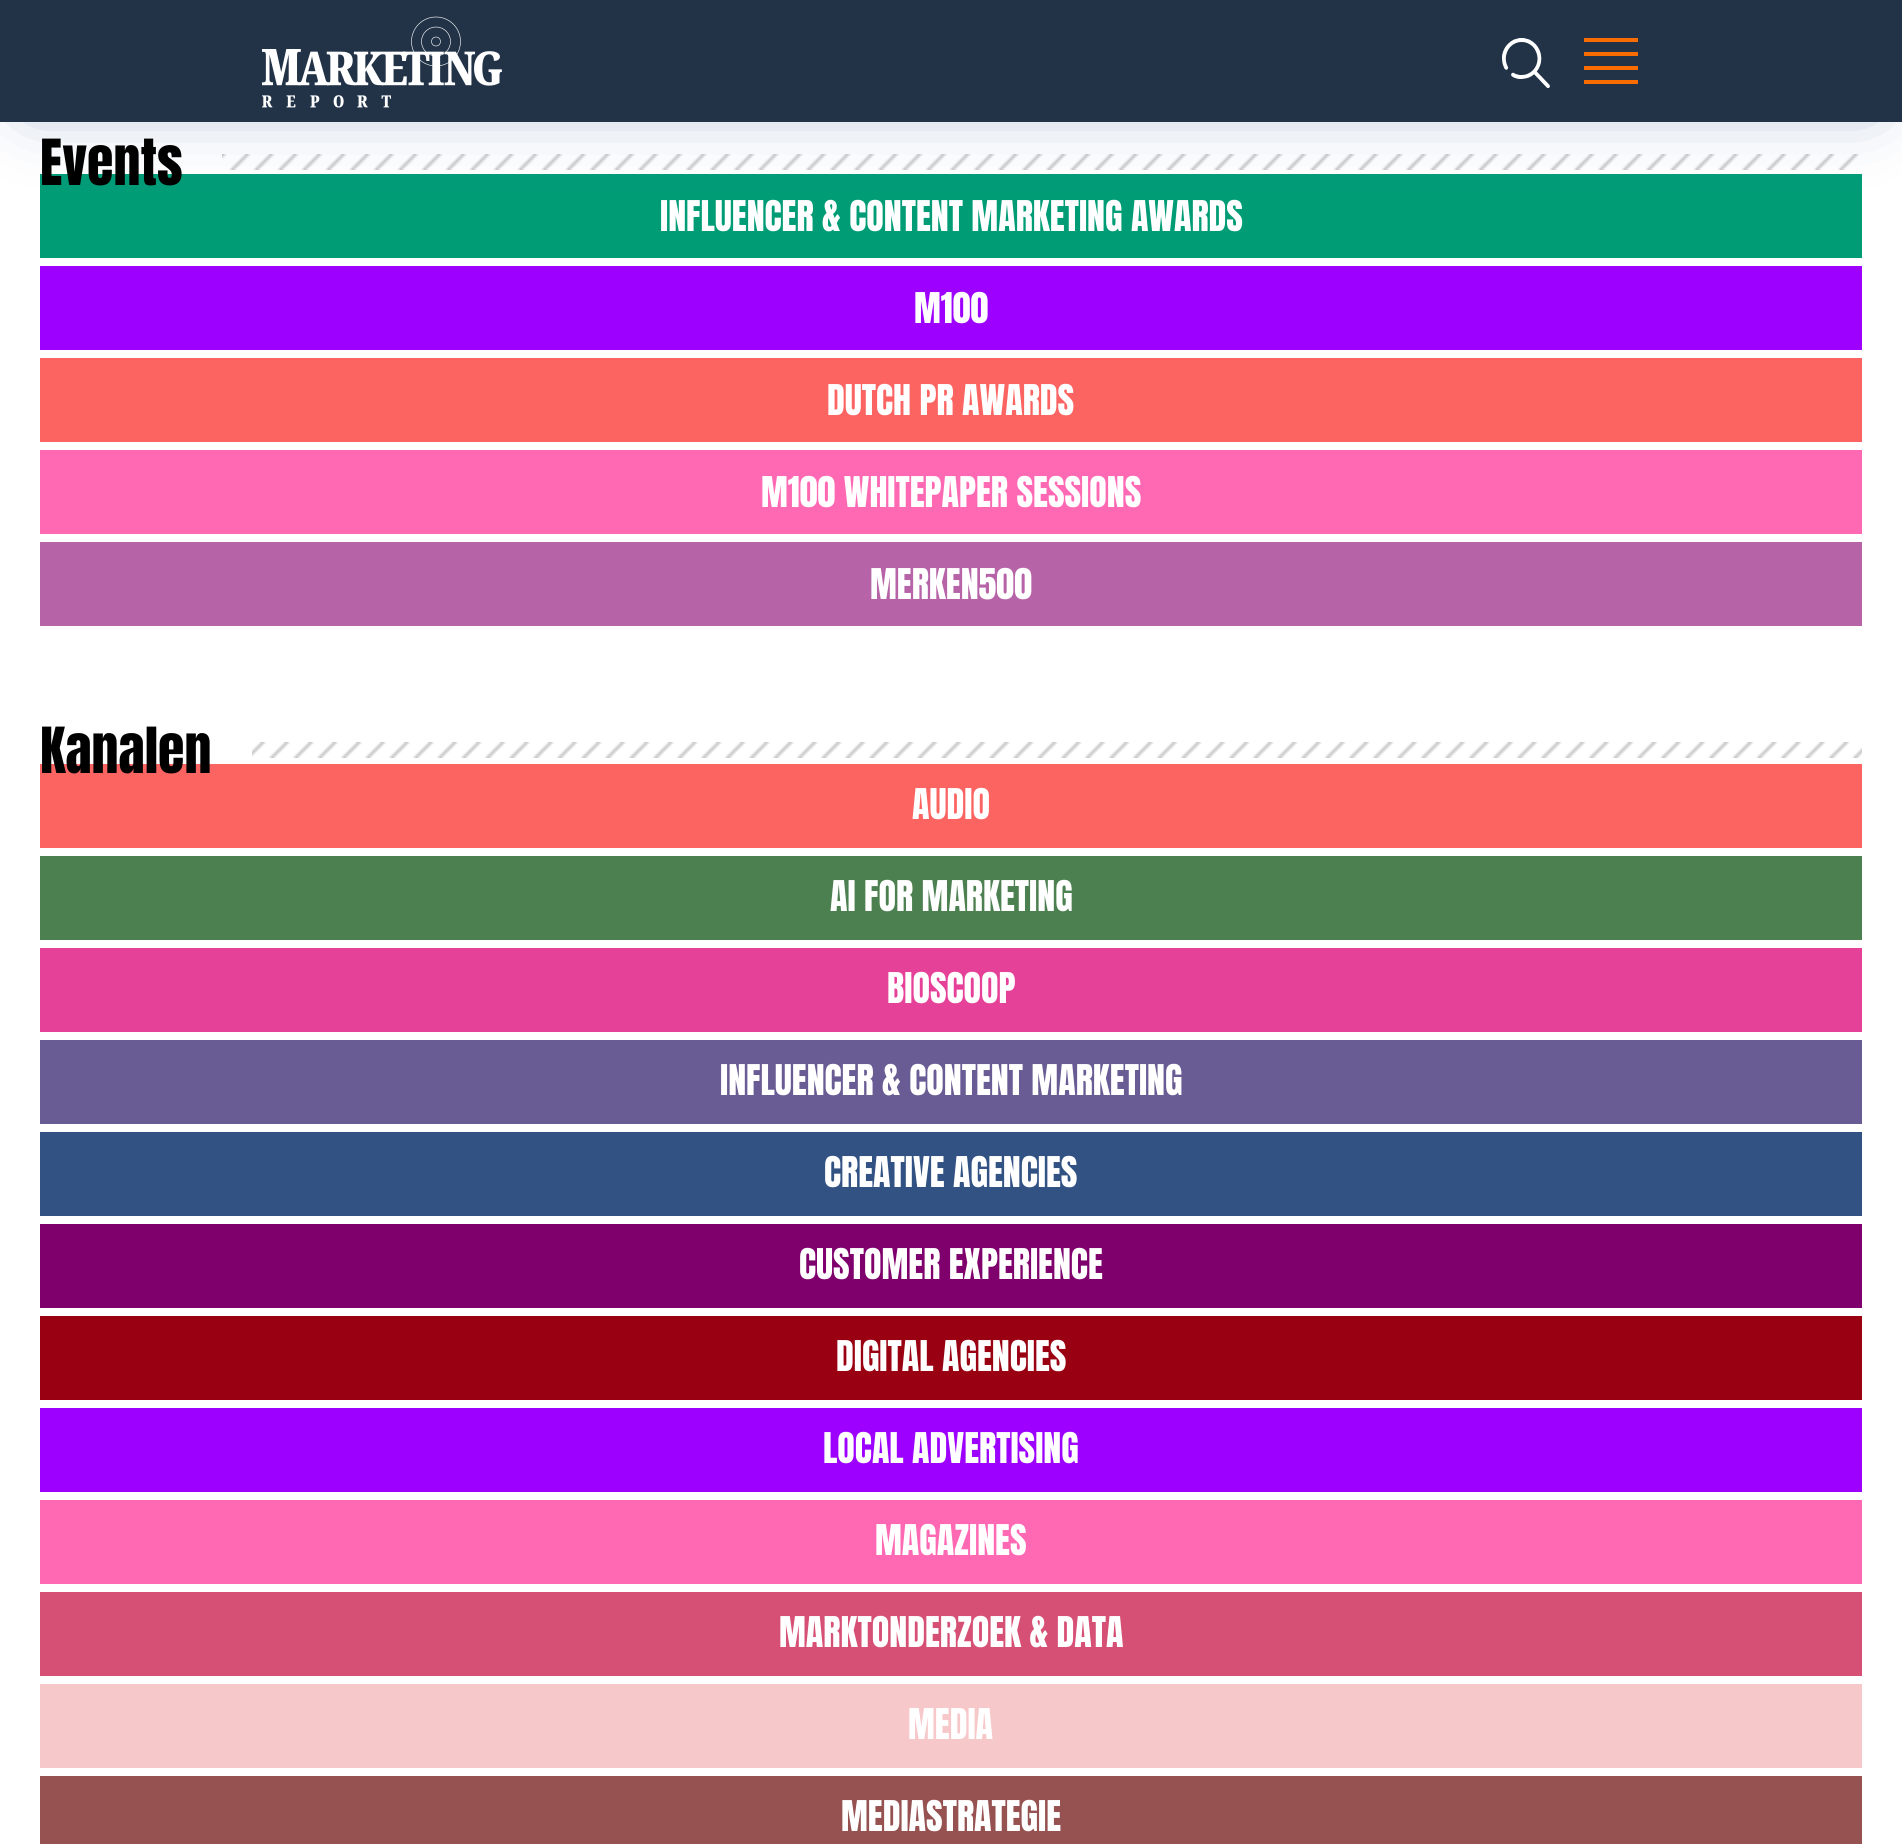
import math
import cairo

surface = cairo.ImageSurface(cairo.FORMAT_RGB24, 1902, 1844)
cr = cairo.Context(surface)
options = cairo.FontOptions()
options.set_hint_metrics(cairo.HINT_METRICS_OFF)
options.set_hint_style(cairo.HINT_STYLE_NONE)
cr.set_font_options(options)
cr.set_miter_limit(4)


def rgb(code):
    cr.set_source_rgb(*(v / 255 for v in bytes.fromhex(code[-6:])))


def rrect(x, y, w, h, r):
    cr.new_sub_path()
    for i, (u, v) in enumerate([(x + w - r, y + h - r), (x + r, y + h - r), (x + r, y + r), (x + w - r, y + r)]):
        cr.arc(u, v, r, i * math.pi / 2, (i + 1) * math.pi / 2)
    cr.close_path()


def soft_shadow(x, y, w, h, r, blur, alpha):
    cr.push_group_with_content(cairo.CONTENT_ALPHA)
    cr.set_operator(cairo.OPERATOR_SOURCE)
    for i in range(15, -16, -2):
        e = blur * i / 6
        if min(w, h) + 2 * e > 0:
            cr.set_source_rgba(0, 0, 0, alpha * math.erfc((i - 1) / 8.5) / 2)
            rrect(x - e, y - e, w + 2 * e, h + 2 * e, max(0, min(r + e + blur * .6, min(w, h) / 2 + e)))
            cr.fill()
    cr.mask(cr.pop_group())


def image(path, x, y, w, h):
    cr.save()
    cr.set_source_surface(cairo.ImageSurface.create_from_png(path), x, y)
    cr.rectangle(x, y, w, h)
    cr.fill()
    cr.restore()


rgb("#ffffff")
cr.paint()
image("img/3.png", 222, 154, 1637, 16)
rgb("#009c76")
cr.rectangle(40, 174, 1822, 84)
cr.fill()
rgb("#9cb1cf")
soft_shadow(30, 40, 1842, 62, 0, 35, 1)
rgb("#223348")
cr.rectangle(0, 0, 1902, 122)
cr.fill()
image("img/1.png", 262, 16, 240, 92)
image("img/2.png", 1502, 38, 48, 50)
for x, y, w, h, color in [
    (1584, 38, 54, 4, "#f96d00"),
    (1584, 52, 54, 4, "#f96d00"),
    (1584, 66, 54, 4, "#f96d00"),
    (1584, 80, 54, 4, "#f96d00"),
    (40, 266, 1822, 84, "#9d00ff"),
    (40, 358, 1822, 84, "#fc6462"),
    (40, 450, 1822, 84, "#ff69b4"),
    (40, 542, 1822, 84, "#b664a7"),
]:
    rgb(color)
    cr.rectangle(x, y, w, h)
    cr.fill()
image("img/4.png", 252, 742, 1610, 16)
for x, y, w, h, color in [
    (40, 764, 1822, 84, "#fc6462"),
    (40, 856, 1822, 84, "#4d8050"),
    (40, 948, 1822, 84, "#e64198"),
    (40, 1040, 1822, 84, "#695b93"),
    (40, 1132, 1822, 84, "#325284"),
    (40, 1224, 1822, 84, "#7f006c"),
    (40, 1316, 1822, 84, "#990012"),
    (40, 1408, 1822, 84, "#9d00ff"),
    (40, 1500, 1822, 84, "#ff69b4"),
    (40, 1592, 1822, 84, "#d64f75"),
    (40, 1684, 1822, 84, "#f7c8c9"),
    (40, 1776, 1822, 68, "#965151"),
]:
    rgb(color)
    cr.rectangle(x, y, w, h)
    cr.fill()
cr.select_font_face("Anton")
cr.set_font_size(54)
rgb("#000000")
cr.move_to(40, 185)
cr.show_text("Events")
cr.set_font_size(36)
rgb("#ffffff")
for x, y, s in [
    (660, 231, "INFLUENCER & CONTENT MARKETING AWARDS"),
    (914, 323, "M100"),
    (827, 415, "DUTCH PR AWARDS"),
    (761, 507, "M100 WHITEPAPER SESSIONS"),
    (870, 599, "MERKEN500"),
]:
    cr.move_to(x, y)
    cr.show_text(s)
cr.set_font_size(54)
rgb("#000000")
cr.move_to(40, 773)
cr.show_text("Kanalen")
cr.set_font_size(36)
rgb("#ffffff")
for x, y, s in [
    (912, 819, "AUDIO"),
    (830, 911, "AI FOR MARKETING"),
    (887, 1003, "BIOSCOOP"),
    (720, 1095, "INFLUENCER & CONTENT MARKETING"),
    (824, 1187, "CREATIVE AGENCIES"),
    (799, 1279, "CUSTOMER EXPERIENCE"),
    (836, 1371, "DIGITAL AGENCIES"),
    (823, 1463, "LOCAL ADVERTISING"),
    (875, 1555, "MAGAZINES"),
    (779, 1647, "MARKTONDERZOEK & DATA"),
    (908, 1739, "MEDIA"),
    (841, 1831, "MEDIASTRATEGIE"),
]:
    cr.move_to(x, y)
    cr.show_text(s)
surface.write_to_png("page.png")
